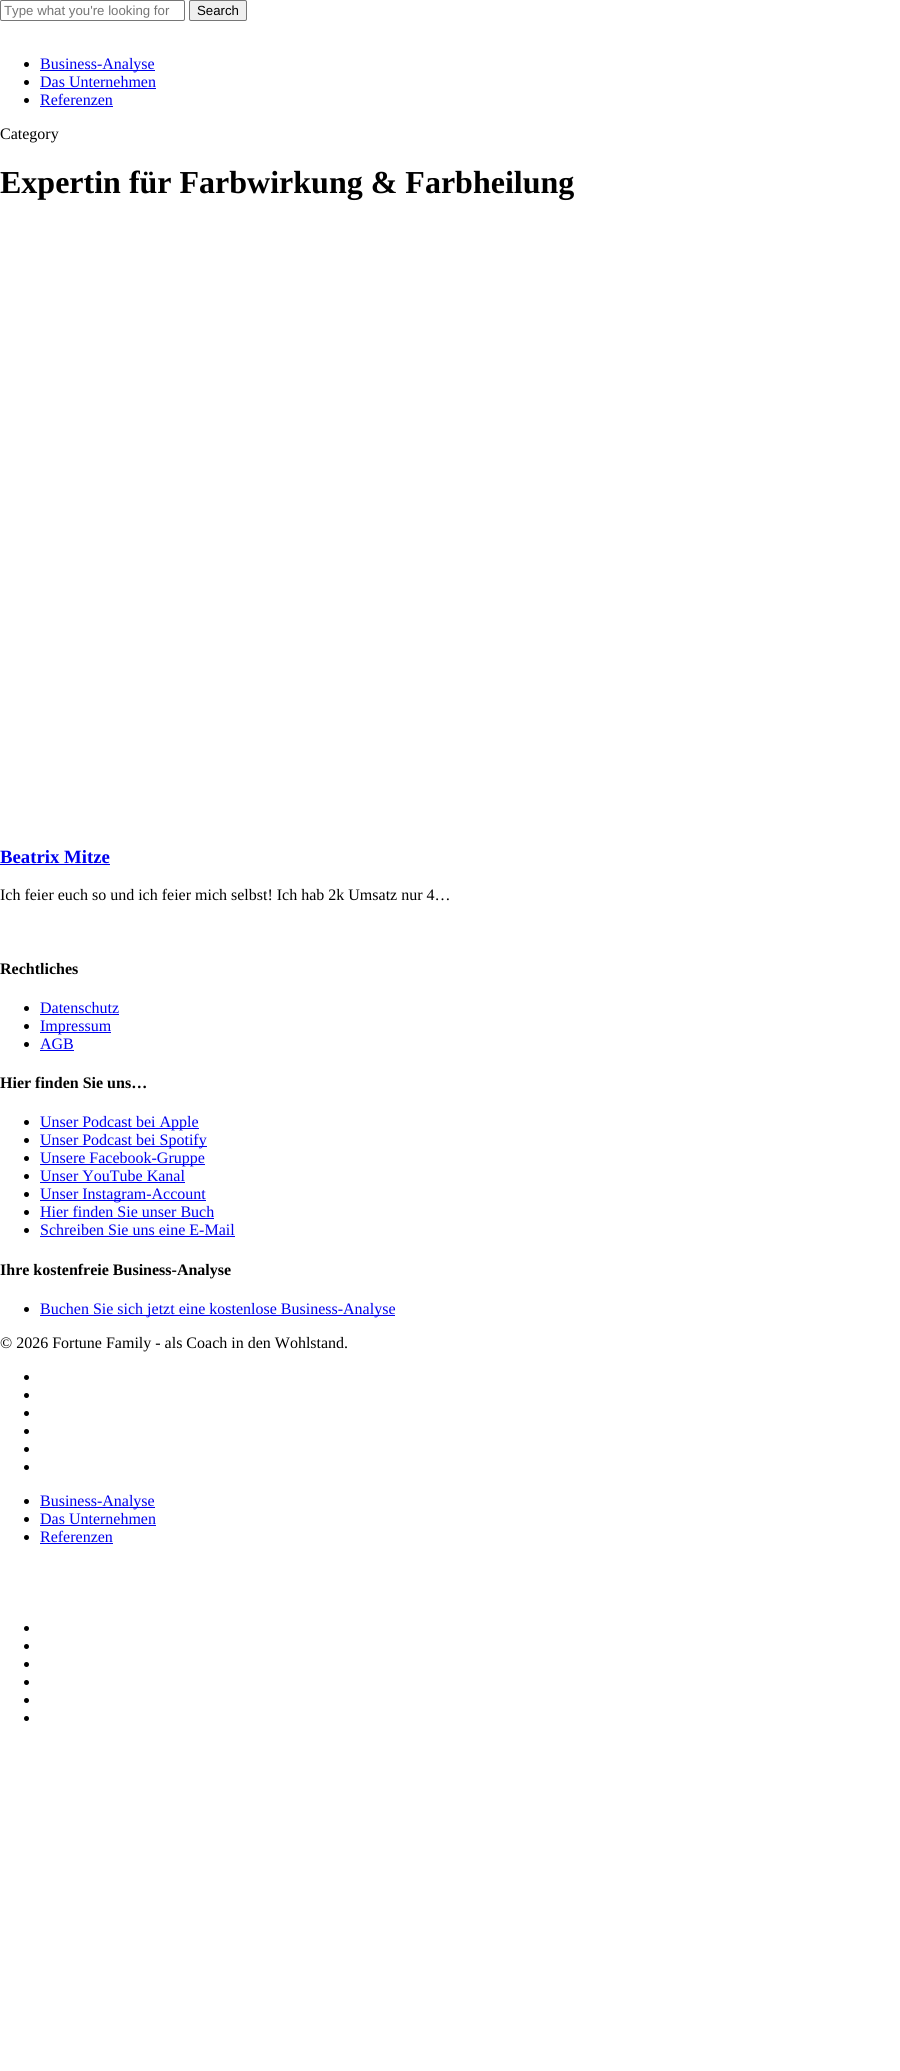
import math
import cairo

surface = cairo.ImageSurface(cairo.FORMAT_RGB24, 900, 2071)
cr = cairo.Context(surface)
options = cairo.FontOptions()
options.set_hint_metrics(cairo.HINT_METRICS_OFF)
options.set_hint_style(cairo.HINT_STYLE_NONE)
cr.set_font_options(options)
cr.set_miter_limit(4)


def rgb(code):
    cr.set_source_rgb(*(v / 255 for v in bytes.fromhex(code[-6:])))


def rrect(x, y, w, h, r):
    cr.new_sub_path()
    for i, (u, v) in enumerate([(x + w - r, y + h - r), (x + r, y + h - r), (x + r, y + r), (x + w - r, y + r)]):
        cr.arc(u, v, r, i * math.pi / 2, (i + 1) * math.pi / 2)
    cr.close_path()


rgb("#ffffff")
cr.paint()
rrect(0.5, 0.5, 184, 20, 1.5)
rgb("#767676")
cr.set_line_width(1)
cr.stroke()
rgb("#efefef")
rrect(189.5, 0.5, 57, 20, 1.5)
cr.fill_preserve()
rgb("#767676")
cr.stroke()
rgb("#000000")
cr.arc(26.5, 64.5, 2.5, 0, 2 * math.pi)
cr.fill()
rgb("#0000ee")
cr.rectangle(40, 70, 115, 1)
cr.fill()
rgb("#000000")
cr.arc(26.5, 82.5, 2.5, 0, 2 * math.pi)
cr.fill()
rgb("#0000ee")
cr.rectangle(40, 88, 116, 1)
cr.fill()
rgb("#000000")
cr.arc(26.5, 100.5, 2.5, 0, 2 * math.pi)
cr.fill()
rgb("#0000ee")
cr.rectangle(40, 106, 73, 1)
cr.fill()
cr.rectangle(0, 864, 110, 1)
cr.fill()
rgb("#000000")
cr.arc(26.5, 1008.5, 2.5, 0, 2 * math.pi)
cr.fill()
rgb("#0000ee")
cr.rectangle(40, 1014, 79, 1)
cr.fill()
rgb("#000000")
cr.arc(26.5, 1026.5, 2.5, 0, 2 * math.pi)
cr.fill()
rgb("#0000ee")
cr.rectangle(40, 1032, 71, 1)
cr.fill()
rgb("#000000")
cr.arc(26.5, 1044.5, 2.5, 0, 2 * math.pi)
cr.fill()
rgb("#0000ee")
cr.rectangle(40, 1050, 34, 1)
cr.fill()
rgb("#000000")
cr.arc(26.5, 1122.5, 2.5, 0, 2 * math.pi)
cr.fill()
rgb("#0000ee")
cr.rectangle(40, 1128, 159, 1)
cr.fill()
rgb("#000000")
cr.arc(26.5, 1140.5, 2.5, 0, 2 * math.pi)
cr.fill()
rgb("#0000ee")
cr.rectangle(40, 1146, 167, 1)
cr.fill()
rgb("#000000")
cr.arc(26.5, 1158.5, 2.5, 0, 2 * math.pi)
cr.fill()
rgb("#0000ee")
cr.rectangle(40, 1164, 165, 1)
cr.fill()
rgb("#000000")
cr.arc(26.5, 1176.5, 2.5, 0, 2 * math.pi)
cr.fill()
rgb("#0000ee")
cr.rectangle(40, 1182, 145, 1)
cr.fill()
rgb("#000000")
cr.arc(26.5, 1194.5, 2.5, 0, 2 * math.pi)
cr.fill()
rgb("#0000ee")
cr.rectangle(40, 1200, 166, 1)
cr.fill()
rgb("#000000")
cr.arc(26.5, 1212.5, 2.5, 0, 2 * math.pi)
cr.fill()
rgb("#0000ee")
cr.rectangle(40, 1218, 174, 1)
cr.fill()
rgb("#000000")
cr.arc(26.5, 1230.5, 2.5, 0, 2 * math.pi)
cr.fill()
rgb("#0000ee")
cr.rectangle(40, 1236, 195, 1)
cr.fill()
rgb("#000000")
cr.arc(26.5, 1309.5, 2.5, 0, 2 * math.pi)
cr.fill()
rgb("#0000ee")
cr.rectangle(40, 1315, 355, 1)
cr.fill()
rgb("#000000")
cr.arc(26.5, 1377.5, 2.5, 0, 2 * math.pi)
cr.fill()
cr.arc(26.5, 1395.5, 2.5, 0, 2 * math.pi)
cr.fill()
cr.arc(26.5, 1413.5, 2.5, 0, 2 * math.pi)
cr.fill()
cr.arc(26.5, 1431.5, 2.5, 0, 2 * math.pi)
cr.fill()
cr.arc(26.5, 1449.5, 2.5, 0, 2 * math.pi)
cr.fill()
cr.arc(26.5, 1467.5, 2.5, 0, 2 * math.pi)
cr.fill()
cr.arc(26.5, 1501.5, 2.5, 0, 2 * math.pi)
cr.fill()
rgb("#0000ee")
cr.rectangle(40, 1507, 115, 1)
cr.fill()
rgb("#000000")
cr.arc(26.5, 1519.5, 2.5, 0, 2 * math.pi)
cr.fill()
rgb("#0000ee")
cr.rectangle(40, 1525, 116, 1)
cr.fill()
rgb("#000000")
cr.arc(26.5, 1537.5, 2.5, 0, 2 * math.pi)
cr.fill()
rgb("#0000ee")
cr.rectangle(40, 1543, 73, 1)
cr.fill()
rgb("#000000")
cr.arc(26.5, 1628.5, 2.5, 0, 2 * math.pi)
cr.fill()
cr.arc(26.5, 1646.5, 2.5, 0, 2 * math.pi)
cr.fill()
cr.arc(26.5, 1664.5, 2.5, 0, 2 * math.pi)
cr.fill()
cr.arc(26.5, 1682.5, 2.5, 0, 2 * math.pi)
cr.fill()
cr.arc(26.5, 1700.5, 2.5, 0, 2 * math.pi)
cr.fill()
cr.arc(26.5, 1718.5, 2.5, 0, 2 * math.pi)
cr.fill()
cr.select_font_face("Liberation Sans")
cr.set_font_size(13.25)
rgb("#757575")
cr.move_to(4, 15)
cr.show_text("Type what you're looking for")
rgb("#000000")
cr.move_to(197, 15)
cr.show_text("Search")
cr.select_font_face("Liberation Serif")
cr.set_font_size(16)
rgb("#0000ee")
for x, y, s in [
    (40, 69, "Business-Analyse"),
    (40, 87, "Das Unternehmen"),
    (40, 105, "Referenzen"),
]:
    cr.move_to(x, y)
    cr.show_text(s)
rgb("#000000")
cr.move_to(0, 139)
cr.show_text("Category")
cr.select_font_face("Liberation Serif", cairo.FONT_SLANT_NORMAL, cairo.FONT_WEIGHT_BOLD)
cr.set_font_size(32)
cr.move_to(0, 193)
cr.show_text("Expertin für Farbwirkung & Farbheilung")
cr.set_font_size(18.75)
rgb("#0000ee")
cr.move_to(0, 863)
cr.show_text("Beatrix Mitze")
cr.select_font_face("Liberation Serif")
cr.set_font_size(16)
rgb("#000000")
cr.move_to(0, 900)
cr.show_text("Ich feier euch so und ich feier mich selbst! Ich hab 2k Umsatz nur 4…")
cr.select_font_face("Liberation Serif", cairo.FONT_SLANT_NORMAL, cairo.FONT_WEIGHT_BOLD)
cr.move_to(0, 974)
cr.show_text("Rechtliches")
cr.select_font_face("Liberation Serif")
rgb("#0000ee")
for x, y, s in [
    (40, 1013, "Datenschutz"),
    (40, 1031, "Impressum"),
    (40, 1049, "AGB"),
]:
    cr.move_to(x, y)
    cr.show_text(s)
cr.select_font_face("Liberation Serif", cairo.FONT_SLANT_NORMAL, cairo.FONT_WEIGHT_BOLD)
rgb("#000000")
cr.move_to(0, 1088)
cr.show_text("Hier finden Sie uns…")
cr.select_font_face("Liberation Serif")
rgb("#0000ee")
for x, y, s in [
    (40, 1127, "Unser Podcast bei Apple"),
    (40, 1145, "Unser Podcast bei Spotify"),
    (40, 1163, "Unsere Facebook-Gruppe"),
    (40, 1181, "Unser YouTube Kanal"),
    (40, 1199, "Unser Instagram-Account"),
    (40, 1217, "Hier finden Sie unser Buch"),
    (40, 1235, "Schreiben Sie uns eine E-Mail"),
]:
    cr.move_to(x, y)
    cr.show_text(s)
cr.select_font_face("Liberation Serif", cairo.FONT_SLANT_NORMAL, cairo.FONT_WEIGHT_BOLD)
rgb("#000000")
cr.move_to(0, 1275)
cr.show_text("Ihre kostenfreie Business-Analyse")
cr.select_font_face("Liberation Serif")
rgb("#0000ee")
cr.move_to(40, 1314)
cr.show_text("Buchen Sie sich jetzt eine kostenlose Business-Analyse")
rgb("#000000")
cr.move_to(0, 1348)
cr.show_text("© 2026 Fortune Family - als Coach in den Wohlstand.")
rgb("#0000ee")
for x, y, s in [
    (40, 1506, "Business-Analyse"),
    (40, 1524, "Das Unternehmen"),
    (40, 1542, "Referenzen"),
]:
    cr.move_to(x, y)
    cr.show_text(s)
surface.write_to_png("page.png")
